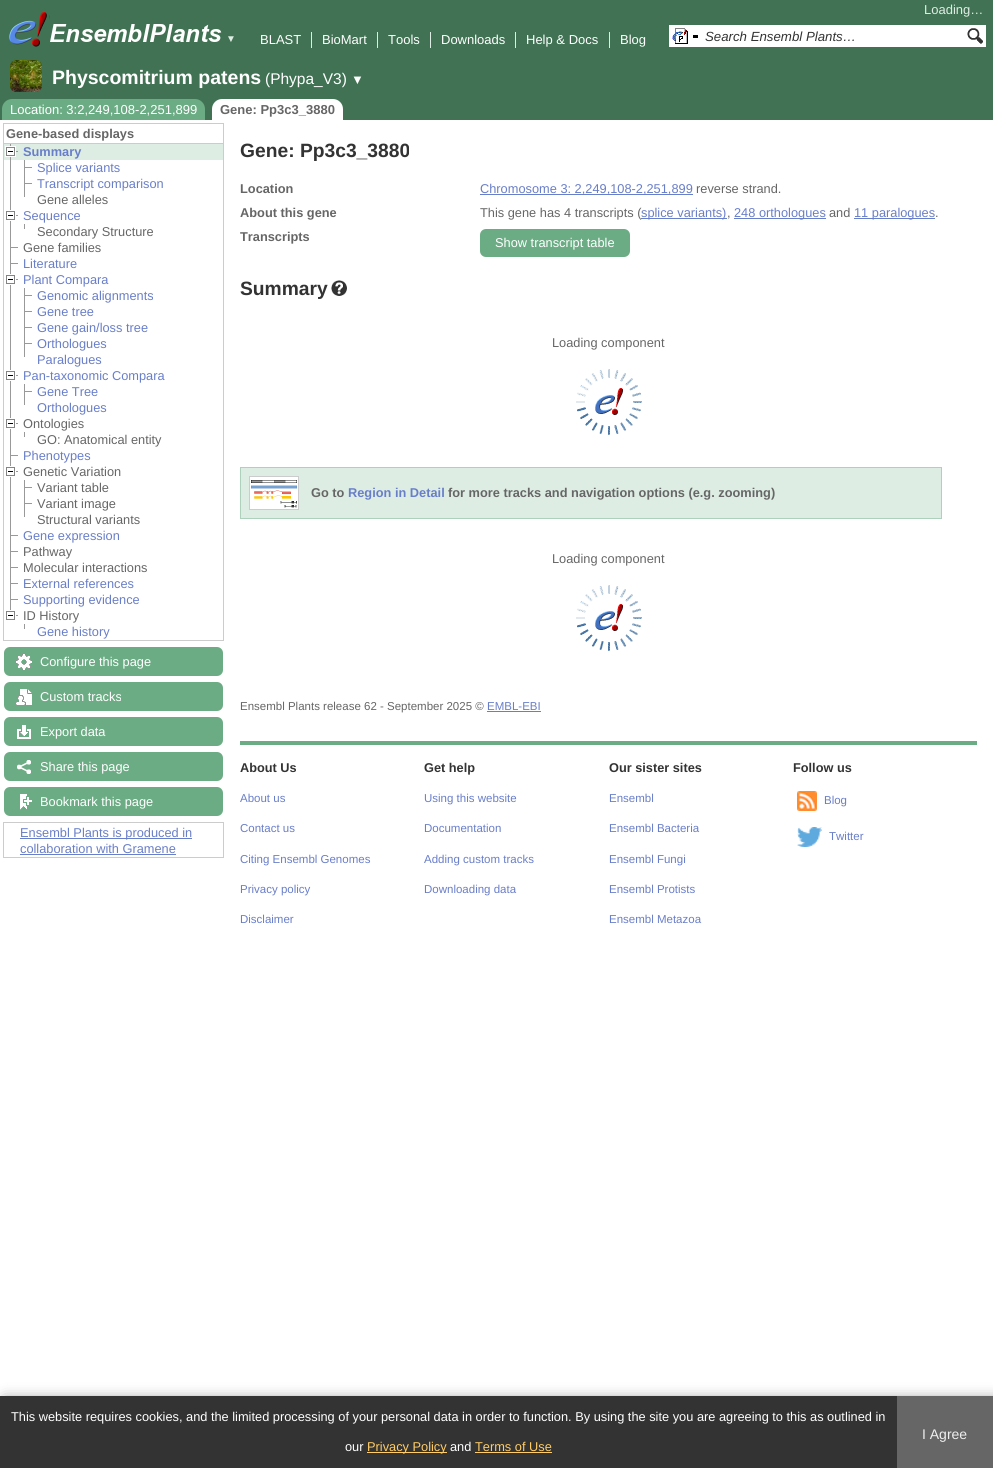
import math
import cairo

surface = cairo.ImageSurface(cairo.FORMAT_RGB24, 993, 1468)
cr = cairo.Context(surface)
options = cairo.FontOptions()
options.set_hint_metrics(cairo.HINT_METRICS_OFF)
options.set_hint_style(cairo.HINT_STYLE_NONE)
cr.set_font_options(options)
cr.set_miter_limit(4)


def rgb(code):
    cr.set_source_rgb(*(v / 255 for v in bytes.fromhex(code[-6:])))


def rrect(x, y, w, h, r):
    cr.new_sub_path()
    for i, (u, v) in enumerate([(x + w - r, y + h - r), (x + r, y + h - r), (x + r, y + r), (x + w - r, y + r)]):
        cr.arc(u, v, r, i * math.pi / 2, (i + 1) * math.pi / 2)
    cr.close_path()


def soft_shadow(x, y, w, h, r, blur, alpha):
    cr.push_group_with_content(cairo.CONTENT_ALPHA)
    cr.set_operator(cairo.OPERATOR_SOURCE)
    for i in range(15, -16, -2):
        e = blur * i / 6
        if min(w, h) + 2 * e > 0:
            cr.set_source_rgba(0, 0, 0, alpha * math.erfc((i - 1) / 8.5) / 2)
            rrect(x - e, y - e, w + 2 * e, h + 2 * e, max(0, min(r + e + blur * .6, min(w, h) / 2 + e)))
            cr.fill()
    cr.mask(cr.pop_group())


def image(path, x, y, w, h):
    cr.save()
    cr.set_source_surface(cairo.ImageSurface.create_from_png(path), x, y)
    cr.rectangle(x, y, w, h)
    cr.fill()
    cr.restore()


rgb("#ffffff")
cr.paint()
rgb("#407253")
cr.rectangle(0, 0, 993, 120)
cr.fill()
image("img/1.png", 9, 12, 38, 35)
image("img/2.png", 49, 15, 173, 27)
for x, y, w, h, color in [
    (311, 32, 1, 16, "#deede4"),
    (377, 32, 1, 16, "#deede4"),
    (430, 32, 1, 16, "#deede4"),
    (515, 32, 1, 16, "#deede4"),
    (609, 32, 1, 16, "#deede4"),
    (669, 25, 317, 22, "#ffffff"),
]:
    rgb(color)
    cr.rectangle(x, y, w, h)
    cr.fill()
image("img/3.png", 672, 28, 16, 16)
rgb("#000000")
cr.rectangle(693, 35, 5, 3)
cr.fill()
image("img/4.png", 967, 28, 16, 16)
image("img/5.png", 10, 60, 32, 32)
rgb("#6cac84")
cr.new_path()
cr.move_to(12, 99)
cr.line_to(195, 99)
cr.curve_to(200.5, 99, 205, 103.5, 205, 109)
cr.line_to(205, 120)
cr.line_to(2, 120)
cr.line_to(2, 109)
cr.curve_to(2, 103.5, 6.5, 99, 12, 99)
cr.close_path()
cr.fill()
rgb("#ffffff")
cr.new_path()
cr.move_to(222, 99)
cr.line_to(333, 99)
cr.curve_to(338.5, 99, 343, 103.5, 343, 109)
cr.line_to(343, 120)
cr.line_to(212, 120)
cr.line_to(212, 109)
cr.curve_to(212, 103.5, 216.5, 99, 222, 99)
cr.close_path()
cr.fill()
for x, y, w, h, color in [
    (3, 123, 221, 1, "#cccccc"),
    (223, 123, 1, 20, "#cccccc"),
    (3, 123, 1, 20, "#cccccc"),
]:
    rgb(color)
    cr.rectangle(x, y, w, h)
    cr.fill()
cr.rectangle(3.5, 143.5, 220, 497)
cr.set_line_width(1)
cr.stroke()
rgb("#deede4")
cr.rectangle(4, 144, 219, 16)
cr.fill()
rgb("#999999")
cr.rectangle(10, 144, 1, 469)
cr.fill()
image("img/6.png", 5, 146, 13, 11)
for x, y, w, h, color in [
    (24, 160, 1, 37, "#999999"),
    (25, 167, 7, 1, "#999999"),
    (25, 183, 7, 1, "#999999"),
]:
    rgb(color)
    cr.rectangle(x, y, w, h)
    cr.fill()
image("img/7.png", 6, 210, 12, 11)
for x, y, w, h, color in [
    (24, 224, 1, 5, "#999999"),
    (11, 247, 7, 1, "#999999"),
    (11, 263, 7, 1, "#999999"),
]:
    rgb(color)
    cr.rectangle(x, y, w, h)
    cr.fill()
image("img/7.png", 6, 274, 12, 11)
for x, y, w, h, color in [
    (24, 288, 1, 69, "#999999"),
    (25, 295, 7, 1, "#999999"),
    (25, 311, 7, 1, "#999999"),
    (25, 327, 7, 1, "#999999"),
    (25, 343, 7, 1, "#999999"),
]:
    rgb(color)
    cr.rectangle(x, y, w, h)
    cr.fill()
image("img/7.png", 6, 370, 12, 11)
cr.rectangle(24, 384, 1, 21)
cr.fill()
cr.rectangle(25, 391, 7, 1)
cr.fill()
image("img/7.png", 6, 418, 12, 11)
cr.rectangle(24, 432, 1, 5)
cr.fill()
cr.rectangle(11, 455, 7, 1)
cr.fill()
image("img/7.png", 6, 466, 12, 11)
for x, y, w, h, color in [
    (24, 480, 1, 37, "#999999"),
    (25, 487, 7, 1, "#999999"),
    (25, 503, 7, 1, "#999999"),
    (11, 535, 7, 1, "#999999"),
    (11, 551, 7, 1, "#999999"),
    (11, 567, 7, 1, "#999999"),
    (11, 583, 7, 1, "#999999"),
    (11, 599, 7, 1, "#999999"),
]:
    rgb(color)
    cr.rectangle(x, y, w, h)
    cr.fill()
image("img/8.png", 6, 610, 12, 10)
cr.rectangle(24, 624, 1, 5)
cr.fill()
rgb("#6cac84")
rrect(4, 647, 219, 29, 6)
cr.fill()
image("img/9.png", 16, 654, 16, 16)
rrect(4, 682, 219, 29, 6)
cr.fill()
image("img/10.png", 16, 689, 16, 16)
rrect(4, 717, 219, 29, 6)
cr.fill()
image("img/11.png", 17, 725, 14, 14)
rrect(4, 752, 219, 29, 6)
cr.fill()
image("img/12.png", 17, 760, 14, 14)
rrect(4, 787, 219, 29, 6)
cr.fill()
image("img/13.png", 20, 794, 12, 16)
cr.rectangle(3.5, 822.5, 220, 35)
rgb("#cccccc")
cr.stroke()
for x, y, w, h, color in [
    (20, 838, 172, 1, "#697ec9"),
    (20, 854, 156, 1, "#697ec9"),
    (480, 194, 213, 1, "#697ec9"),
    (734, 218, 92, 1, "#697ec9"),
    (854, 218, 81, 1, "#697ec9"),
]:
    rgb(color)
    cr.rectangle(x, y, w, h)
    cr.fill()
rgb("#6cac84")
rrect(480, 229, 150, 28, 6)
cr.fill()
image("img/14.png", 331, 280, 16, 16)
image("img/15.png", 576, 369, 66, 66)
rgb("#deede4")
cr.rectangle(240.5, 467.5, 701, 51)
cr.fill_preserve()
rgb("#add1ba")
cr.stroke()
cr.rectangle(249.5, 476.5, 49, 33)
rgb("#cccccc")
cr.stroke()
image("img/16.png", 250, 477, 48, 32)
image("img/15.png", 576, 585, 66, 66)
rgb("#697ec9")
cr.rectangle(487, 711, 54, 1)
cr.fill()
rgb("#6cac84")
cr.rectangle(240, 741, 737, 4)
cr.fill()
image("img/17.png", 797, 791, 20, 20)
image("img/18.png", 797, 827, 25, 20)
rgb("#666666")
soft_shadow(5, 1401, 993, 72, 0, 7.5, 1)
for x, y, w, h, color in [
    (0, 1396, 897, 72, "#333333"),
    (367, 1452, 80, 1, "#ffcc66"),
    (475, 1452, 77, 1, "#ffcc66"),
    (897, 1396, 96, 72, "#666666"),
]:
    rgb(color)
    cr.rectangle(x, y, w, h)
    cr.fill()
cr.select_font_face("Liberation Sans")
cr.set_font_size(10)
rgb("#deede4")
cr.move_to(226, 42)
cr.show_text("▼")
cr.set_font_size(13)
cr.move_to(924, 14)
cr.show_text("Loading…")
rgb("#ffffff")
for x, y, s in [
    (260, 44, "BLAST"),
    (322, 44, "BioMart"),
    (388, 44, "Tools"),
    (441, 44, "Downloads"),
    (526, 44, "Help & Docs"),
    (620, 44, "Blog"),
]:
    cr.move_to(x, y)
    cr.show_text(s)
cr.select_font_face("Liberation Sans", cairo.FONT_SLANT_ITALIC)
cr.set_font_size(13.25)
rgb("#333333")
cr.move_to(705, 41)
cr.show_text("Search Ensembl Plants…")
cr.select_font_face("Liberation Sans", cairo.FONT_SLANT_NORMAL, cairo.FONT_WEIGHT_BOLD)
cr.set_font_size(19.5)
rgb("#ffffff")
cr.move_to(52, 84)
cr.show_text("Physcomitrium patens")
cr.select_font_face("Liberation Sans")
cr.set_font_size(15.5)
cr.move_to(265, 84)
cr.show_text("(Phypa_V3)")
cr.set_font_size(13)
cr.move_to(351, 84)
cr.show_text("▼")
cr.move_to(10, 114)
cr.show_text("Location: 3:2,249,108-2,251,899")
cr.select_font_face("Liberation Sans", cairo.FONT_SLANT_NORMAL, cairo.FONT_WEIGHT_BOLD)
rgb("#666666")
cr.move_to(220, 114)
cr.show_text("Gene: Pp3c3_3880")
cr.set_font_size(12.8)
cr.move_to(6, 138)
cr.show_text("Gene-based displays")
rgb("#697ec9")
cr.move_to(23, 156)
cr.show_text("Summary")
cr.select_font_face("Liberation Sans")
cr.move_to(37, 172)
cr.show_text("Splice variants")
cr.move_to(37, 188)
cr.show_text("Transcript comparison")
rgb("#666666")
cr.move_to(37, 204)
cr.show_text("Gene alleles")
rgb("#697ec9")
cr.move_to(23, 220)
cr.show_text("Sequence")
rgb("#666666")
cr.move_to(37, 236)
cr.show_text("Secondary Structure")
cr.move_to(23, 252)
cr.show_text("Gene families")
rgb("#697ec9")
for x, y, s in [
    (23, 268, "Literature"),
    (23, 284, "Plant Compara"),
    (37, 300, "Genomic alignments"),
    (37, 316, "Gene tree"),
    (37, 332, "Gene gain/loss tree"),
    (37, 348, "Orthologues"),
    (37, 364, "Paralogues"),
    (23, 380, "Pan-taxonomic Compara"),
    (37, 396, "Gene Tree"),
    (37, 412, "Orthologues"),
]:
    cr.move_to(x, y)
    cr.show_text(s)
rgb("#666666")
cr.move_to(23, 428)
cr.show_text("Ontologies")
cr.move_to(37, 444)
cr.show_text("GO: Anatomical entity")
rgb("#697ec9")
cr.move_to(23, 460)
cr.show_text("Phenotypes")
rgb("#666666")
for x, y, s in [
    (23, 476, "Genetic Variation"),
    (37, 492, "Variant table"),
    (37, 508, "Variant image"),
    (37, 524, "Structural variants"),
]:
    cr.move_to(x, y)
    cr.show_text(s)
rgb("#697ec9")
cr.move_to(23, 540)
cr.show_text("Gene expression")
rgb("#666666")
cr.move_to(23, 556)
cr.show_text("Pathway")
cr.move_to(23, 572)
cr.show_text("Molecular interactions")
rgb("#697ec9")
cr.move_to(23, 588)
cr.show_text("External references")
cr.move_to(23, 604)
cr.show_text("Supporting evidence")
rgb("#666666")
cr.move_to(23, 620)
cr.show_text("ID History")
rgb("#697ec9")
cr.move_to(37, 636)
cr.show_text("Gene history")
rgb("#ffffff")
for x, y, s in [
    (40, 666, "Configure this page"),
    (40, 701, "Custom tracks"),
    (40, 736, "Export data"),
    (40, 771, "Share this page"),
    (40, 806, "Bookmark this page"),
]:
    cr.move_to(x, y)
    cr.show_text(s)
rgb("#697ec9")
cr.move_to(20, 837)
cr.show_text("Ensembl Plants is produced in")
cr.move_to(20, 853)
cr.show_text("collaboration with Gramene")
cr.select_font_face("Liberation Sans", cairo.FONT_SLANT_NORMAL, cairo.FONT_WEIGHT_BOLD)
cr.set_font_size(19.25)
rgb("#333333")
cr.move_to(240, 157)
cr.show_text("Gene: Pp3c3_3880")
cr.set_font_size(12.8)
rgb("#666666")
cr.move_to(240, 193)
cr.show_text("Location")
cr.select_font_face("Liberation Sans")
rgb("#697ec9")
cr.move_to(480, 193)
cr.show_text("Chromosome 3: 2,249,108-2,251,899")
rgb("#666666")
cr.move_to(696, 193)
cr.show_text("reverse strand.")
cr.select_font_face("Liberation Sans", cairo.FONT_SLANT_NORMAL, cairo.FONT_WEIGHT_BOLD)
cr.move_to(240, 217)
cr.show_text("About this gene")
cr.select_font_face("Liberation Sans")
cr.move_to(480, 217)
cr.show_text("This gene has 4 transcripts (")
rgb("#697ec9")
cr.rectangle(641, 218, 86, 1)
cr.fill()
cr.move_to(641, 217)
cr.show_text("splice variants)")
rgb("#666666")
cr.move_to(727, 217)
cr.show_text(",")
rgb("#697ec9")
cr.move_to(734, 217)
cr.show_text("248 orthologues")
rgb("#666666")
cr.move_to(829, 217)
cr.show_text("and")
rgb("#697ec9")
cr.move_to(854, 217)
cr.show_text("11 paralogues")
rgb("#666666")
cr.move_to(935, 217)
cr.show_text(".")
cr.select_font_face("Liberation Sans", cairo.FONT_SLANT_NORMAL, cairo.FONT_WEIGHT_BOLD)
cr.move_to(240, 241)
cr.show_text("Transcripts")
cr.select_font_face("Liberation Sans")
rgb("#ffffff")
cr.move_to(495, 247)
cr.show_text("Show transcript table")
cr.select_font_face("Liberation Sans", cairo.FONT_SLANT_NORMAL, cairo.FONT_WEIGHT_BOLD)
cr.set_font_size(19.25)
rgb("#333333")
cr.move_to(240, 295)
cr.show_text("Summary")
cr.select_font_face("Liberation Sans")
cr.set_font_size(12.8)
rgb("#666666")
cr.move_to(552, 347)
cr.show_text("Loading component")
cr.select_font_face("Liberation Sans", cairo.FONT_SLANT_NORMAL, cairo.FONT_WEIGHT_BOLD)
cr.move_to(311, 497)
cr.show_text("Go to")
rgb("#697ec9")
cr.move_to(348, 497)
cr.show_text("Region in Detail")
rgb("#666666")
cr.move_to(448, 497)
cr.show_text("for more tracks and navigation options (e.g. zooming)")
cr.select_font_face("Liberation Sans")
cr.move_to(552, 563)
cr.show_text("Loading component")
cr.set_font_size(11.5)
cr.move_to(240, 710)
cr.show_text("Ensembl Plants release 62 - September 2025 ©")
rgb("#697ec9")
cr.move_to(487, 710)
cr.show_text("EMBL-EBI")
cr.select_font_face("Liberation Sans", cairo.FONT_SLANT_NORMAL, cairo.FONT_WEIGHT_BOLD)
cr.set_font_size(12.75)
rgb("#333333")
cr.move_to(240, 772)
cr.show_text("About Us")
cr.select_font_face("Liberation Sans")
cr.set_font_size(11.5)
rgb("#697ec9")
for x, y, s in [
    (240, 802, "About us"),
    (240, 832, "Contact us"),
    (240, 863, "Citing Ensembl Genomes"),
    (240, 893, "Privacy policy"),
    (240, 923, "Disclaimer"),
]:
    cr.move_to(x, y)
    cr.show_text(s)
cr.select_font_face("Liberation Sans", cairo.FONT_SLANT_NORMAL, cairo.FONT_WEIGHT_BOLD)
cr.set_font_size(12.75)
rgb("#333333")
cr.move_to(424, 772)
cr.show_text("Get help")
cr.select_font_face("Liberation Sans")
cr.set_font_size(11.5)
rgb("#697ec9")
for x, y, s in [
    (424, 802, "Using this website"),
    (424, 832, "Documentation"),
    (424, 863, "Adding custom tracks"),
    (424, 893, "Downloading data"),
]:
    cr.move_to(x, y)
    cr.show_text(s)
cr.select_font_face("Liberation Sans", cairo.FONT_SLANT_NORMAL, cairo.FONT_WEIGHT_BOLD)
cr.set_font_size(12.75)
rgb("#333333")
cr.move_to(609, 772)
cr.show_text("Our sister sites")
cr.select_font_face("Liberation Sans")
cr.set_font_size(11.5)
rgb("#697ec9")
for x, y, s in [
    (609, 802, "Ensembl"),
    (609, 832, "Ensembl Bacteria"),
    (609, 863, "Ensembl Fungi"),
    (609, 893, "Ensembl Protists"),
    (609, 923, "Ensembl Metazoa"),
]:
    cr.move_to(x, y)
    cr.show_text(s)
cr.select_font_face("Liberation Sans", cairo.FONT_SLANT_NORMAL, cairo.FONT_WEIGHT_BOLD)
cr.set_font_size(12.75)
rgb("#333333")
cr.move_to(793, 772)
cr.show_text("Follow us")
cr.select_font_face("Liberation Sans")
cr.set_font_size(11.5)
rgb("#697ec9")
cr.move_to(824, 804)
cr.show_text("Blog")
cr.move_to(829, 840)
cr.show_text("Twitter")
cr.set_font_size(12.8)
rgb("#ffffff")
cr.move_to(11, 1421)
cr.show_text("This website requires cookies, and the limited processing of your personal data in order to function. By using the site you are agreeing to this as outlined in")
cr.move_to(345, 1451)
cr.show_text("our")
rgb("#ffcc66")
cr.move_to(367, 1451)
cr.show_text("Privacy Policy")
rgb("#ffffff")
cr.move_to(450, 1451)
cr.show_text("and")
rgb("#ffcc66")
cr.move_to(475, 1451)
cr.show_text("Terms of Use")
cr.set_font_size(14)
rgb("#eeeeee")
cr.move_to(922, 1439)
cr.show_text("I Agree")
surface.write_to_png("page.png")
